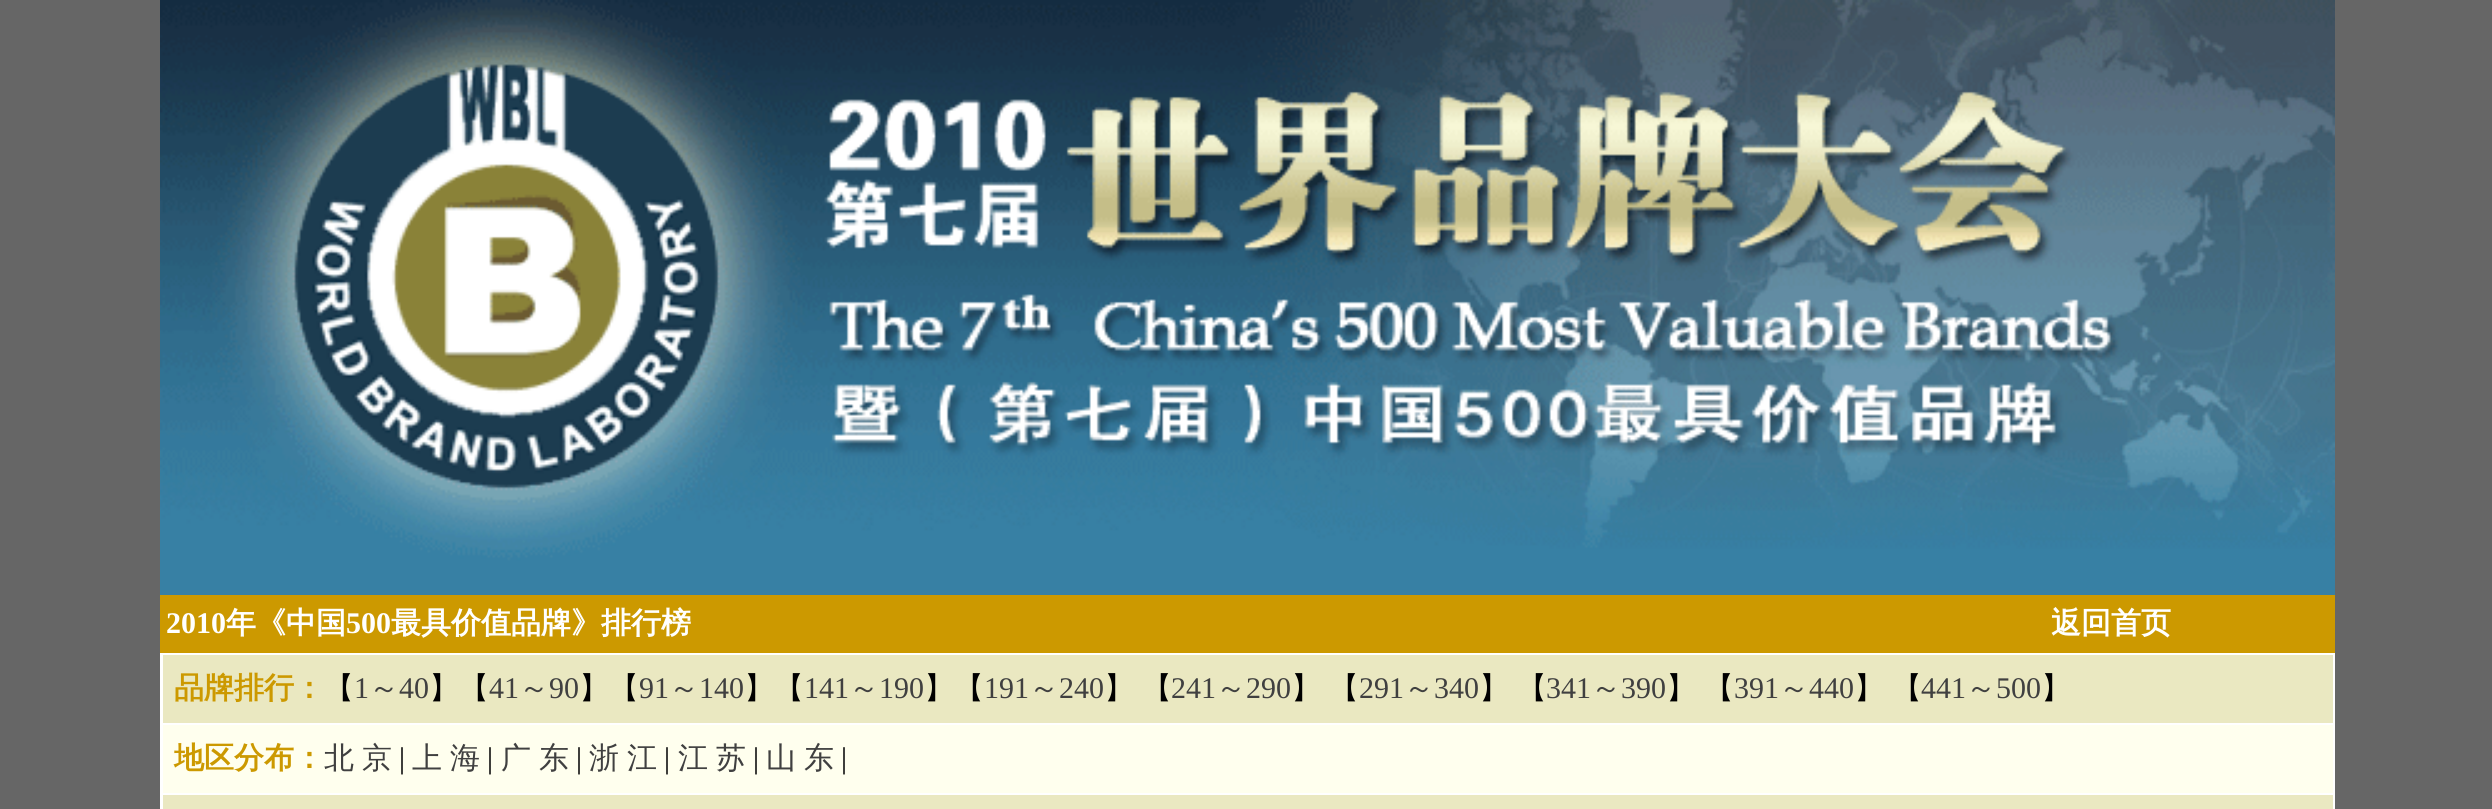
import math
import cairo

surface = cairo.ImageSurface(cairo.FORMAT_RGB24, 2492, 809)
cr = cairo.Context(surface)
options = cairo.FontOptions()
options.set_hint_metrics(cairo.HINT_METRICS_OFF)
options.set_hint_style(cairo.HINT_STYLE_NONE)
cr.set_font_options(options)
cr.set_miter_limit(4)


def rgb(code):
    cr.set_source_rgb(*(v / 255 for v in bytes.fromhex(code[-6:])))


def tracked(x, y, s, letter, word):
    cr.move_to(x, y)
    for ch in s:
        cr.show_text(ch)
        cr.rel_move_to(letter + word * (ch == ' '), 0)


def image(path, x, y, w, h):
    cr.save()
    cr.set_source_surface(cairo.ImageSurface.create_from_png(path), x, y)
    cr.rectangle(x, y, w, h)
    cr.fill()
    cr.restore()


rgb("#666666")
cr.paint()
image("img/1.png", 160, 0, 2175, 595)
for x, y, w, h, color in [
    (160, 595, 2175, 58, "#cc9900"),
    (160, 653, 2175, 156, "#ffffff"),
    (163, 655, 2170, 68, "#eae8c1"),
    (163, 725, 2170, 68, "#ffffee"),
    (163, 795, 2170, 14, "#eae8c1"),
]:
    rgb(color)
    cr.rectangle(x, y, w, h)
    cr.fill()
cr.select_font_face("Liberation Serif", cairo.FONT_SLANT_NORMAL, cairo.FONT_WEIGHT_BOLD)
cr.set_font_size(30)
rgb("#ffffff")
cr.move_to(166, 633)
cr.show_text("2010")
cr.select_font_face("WenQuanYi Zen Hei", cairo.FONT_SLANT_NORMAL, cairo.FONT_WEIGHT_BOLD)
cr.move_to(226, 633)
cr.show_text("年《中国")
cr.select_font_face("Liberation Serif", cairo.FONT_SLANT_NORMAL, cairo.FONT_WEIGHT_BOLD)
cr.move_to(346, 633)
cr.show_text("500")
cr.select_font_face("WenQuanYi Zen Hei", cairo.FONT_SLANT_NORMAL, cairo.FONT_WEIGHT_BOLD)
cr.move_to(391, 633)
cr.show_text("最具价值品牌》排行榜")
cr.move_to(2051, 633)
cr.show_text("返回首页")
rgb("#cc9900")
cr.move_to(174, 698)
cr.show_text("品牌排行：")
cr.select_font_face("WenQuanYi Zen Hei Medium")
rgb("#000000")
cr.move_to(324, 698)
cr.show_text("【")
cr.select_font_face("Liberation Serif")
rgb("#404040")
cr.move_to(354, 698)
cr.show_text("1")
cr.select_font_face("WenQuanYi Zen Hei Medium")
cr.move_to(369, 698)
cr.show_text("～")
cr.select_font_face("Liberation Serif")
cr.move_to(399, 698)
cr.show_text("40")
cr.select_font_face("WenQuanYi Zen Hei Medium")
rgb("#000000")
cr.move_to(429, 698)
cr.show_text("】【")
cr.select_font_face("Liberation Serif")
rgb("#404040")
cr.move_to(489, 698)
cr.show_text("41")
cr.select_font_face("WenQuanYi Zen Hei Medium")
cr.move_to(519, 698)
cr.show_text("～")
cr.select_font_face("Liberation Serif")
cr.move_to(549, 698)
cr.show_text("90")
cr.select_font_face("WenQuanYi Zen Hei Medium")
rgb("#000000")
cr.move_to(579, 698)
cr.show_text("】【")
cr.select_font_face("Liberation Serif")
rgb("#404040")
cr.move_to(639, 698)
cr.show_text("91")
cr.select_font_face("WenQuanYi Zen Hei Medium")
cr.move_to(669, 698)
cr.show_text("～")
cr.select_font_face("Liberation Serif")
cr.move_to(699, 698)
cr.show_text("140")
cr.select_font_face("WenQuanYi Zen Hei Medium")
rgb("#000000")
cr.move_to(744, 698)
cr.show_text("】【")
cr.select_font_face("Liberation Serif")
rgb("#404040")
cr.move_to(804, 698)
cr.show_text("141")
cr.select_font_face("WenQuanYi Zen Hei Medium")
cr.move_to(849, 698)
cr.show_text("～")
cr.select_font_face("Liberation Serif")
cr.move_to(879, 698)
cr.show_text("190")
cr.select_font_face("WenQuanYi Zen Hei Medium")
rgb("#000000")
cr.move_to(924, 698)
cr.show_text("】【")
cr.select_font_face("Liberation Serif")
rgb("#404040")
cr.move_to(984, 698)
cr.show_text("191")
cr.select_font_face("WenQuanYi Zen Hei Medium")
cr.move_to(1029, 698)
cr.show_text("～")
cr.select_font_face("Liberation Serif")
cr.move_to(1059, 698)
cr.show_text("240")
cr.select_font_face("WenQuanYi Zen Hei Medium")
rgb("#000000")
tracked(1104, 698, "】 【", 0, -1)
cr.select_font_face("Liberation Serif")
rgb("#404040")
cr.move_to(1171, 698)
cr.show_text("241")
cr.select_font_face("WenQuanYi Zen Hei Medium")
cr.move_to(1216, 698)
cr.show_text("～")
cr.select_font_face("Liberation Serif")
cr.move_to(1246, 698)
cr.show_text("290")
cr.select_font_face("WenQuanYi Zen Hei Medium")
rgb("#000000")
tracked(1291, 698, "】 【", 0, -1)
cr.select_font_face("Liberation Serif")
rgb("#404040")
cr.move_to(1359, 698)
cr.show_text("291")
cr.select_font_face("WenQuanYi Zen Hei Medium")
cr.move_to(1404, 698)
cr.show_text("～")
cr.select_font_face("Liberation Serif")
cr.move_to(1434, 698)
cr.show_text("340")
cr.select_font_face("WenQuanYi Zen Hei Medium")
rgb("#000000")
tracked(1479, 698, "】 【", 0, -1)
cr.select_font_face("Liberation Serif")
rgb("#404040")
cr.move_to(1546, 698)
cr.show_text("341")
cr.select_font_face("WenQuanYi Zen Hei Medium")
cr.move_to(1591, 698)
cr.show_text("～")
cr.select_font_face("Liberation Serif")
cr.move_to(1621, 698)
cr.show_text("390")
cr.select_font_face("WenQuanYi Zen Hei Medium")
rgb("#000000")
tracked(1666, 698, "】 【", 0, -1)
cr.select_font_face("Liberation Serif")
rgb("#404040")
cr.move_to(1734, 698)
cr.show_text("391")
cr.select_font_face("WenQuanYi Zen Hei Medium")
cr.move_to(1779, 698)
cr.show_text("～")
cr.select_font_face("Liberation Serif")
cr.move_to(1809, 698)
cr.show_text("440")
cr.select_font_face("WenQuanYi Zen Hei Medium")
rgb("#000000")
tracked(1854, 698, "】 【", 0, -1)
cr.select_font_face("Liberation Serif")
rgb("#404040")
cr.move_to(1921, 698)
cr.show_text("441")
cr.select_font_face("WenQuanYi Zen Hei Medium")
cr.move_to(1966, 698)
cr.show_text("～")
cr.select_font_face("Liberation Serif")
cr.move_to(1996, 698)
cr.show_text("500")
cr.select_font_face("WenQuanYi Zen Hei Medium")
rgb("#000000")
cr.move_to(2041, 698)
cr.show_text("】")
cr.select_font_face("WenQuanYi Zen Hei", cairo.FONT_SLANT_NORMAL, cairo.FONT_WEIGHT_BOLD)
rgb("#cc9900")
cr.move_to(174, 768)
cr.show_text("地区分布：")
cr.select_font_face("WenQuanYi Zen Hei Medium")
rgb("#404040")
tracked(324, 768, "北 京", 0, -1)
cr.select_font_face("Liberation Serif")
rgb("#000000")
cr.move_to(399, 768)
cr.show_text("|")
cr.select_font_face("WenQuanYi Zen Hei Medium")
rgb("#404040")
tracked(412, 768, "上 海", 0, -1)
cr.select_font_face("Liberation Serif")
rgb("#000000")
cr.move_to(487, 768)
cr.show_text("|")
cr.select_font_face("WenQuanYi Zen Hei Medium")
rgb("#404040")
tracked(501, 768, "广 东", 0, -1)
cr.select_font_face("Liberation Serif")
rgb("#000000")
cr.move_to(576, 768)
cr.show_text("|")
cr.select_font_face("WenQuanYi Zen Hei Medium")
rgb("#404040")
tracked(589, 768, "浙 江", 0, -1)
cr.select_font_face("Liberation Serif")
rgb("#000000")
cr.move_to(664, 768)
cr.show_text("|")
cr.select_font_face("WenQuanYi Zen Hei Medium")
rgb("#404040")
tracked(678, 768, "江 苏", 0, -1)
cr.select_font_face("Liberation Serif")
rgb("#000000")
cr.move_to(753, 768)
cr.show_text("|")
cr.select_font_face("WenQuanYi Zen Hei Medium")
rgb("#404040")
tracked(766, 768, "山 东", 0, -1)
cr.select_font_face("Liberation Serif")
rgb("#000000")
cr.move_to(841, 768)
cr.show_text("|")
surface.write_to_png("page.png")
